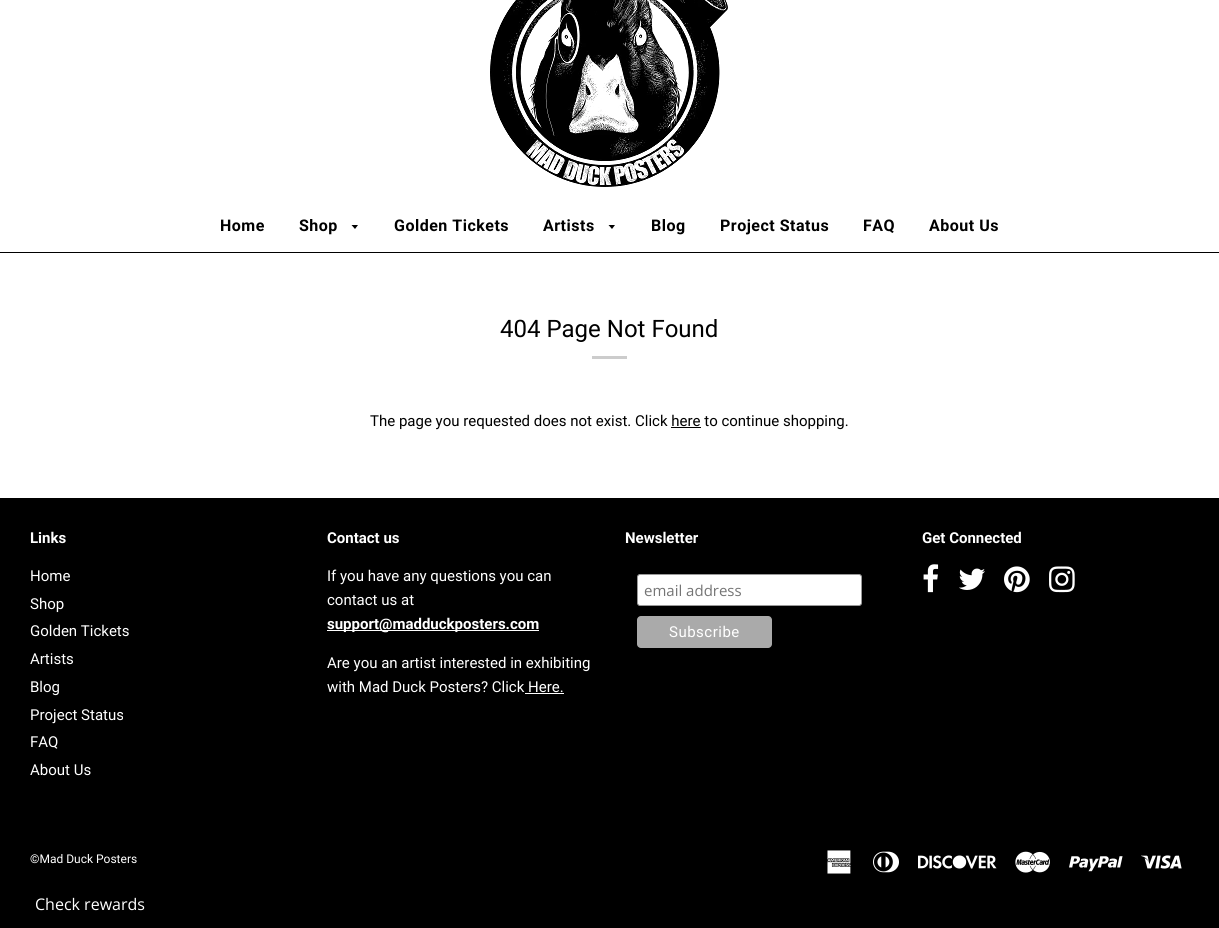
import math
import cairo

surface = cairo.ImageSurface(cairo.FORMAT_RGB24, 1219, 928)
cr = cairo.Context(surface)
options = cairo.FontOptions()
options.set_hint_metrics(cairo.HINT_METRICS_OFF)
options.set_hint_style(cairo.HINT_STYLE_NONE)
cr.set_font_options(options)
cr.set_miter_limit(4)


def rgb(code):
    cr.set_source_rgb(*(v / 255 for v in bytes.fromhex(code[-6:])))


def tracked(x, y, s, letter, word):
    cr.move_to(x, y)
    for ch in s:
        cr.show_text(ch)
        cr.rel_move_to(letter + word * (ch == ' '), 0)


def rrect(x, y, w, h, r):
    cr.new_sub_path()
    for i, (u, v) in enumerate([(x + w - r, y + h - r), (x + r, y + h - r), (x + r, y + r), (x + w - r, y + r)]):
        cr.arc(u, v, r, i * math.pi / 2, (i + 1) * math.pi / 2)
    cr.close_path()


def image(path, x, y, w, h):
    cr.save()
    cr.set_source_surface(cairo.ImageSurface.create_from_png(path), x, y)
    cr.rectangle(x, y, w, h)
    cr.fill()
    cr.restore()


rgb("#ffffff")
cr.paint()
rgb("#000000")
cr.rectangle(0, 252, 1219, 1)
cr.fill()
image("img/1.png", 490, 0, 238, 187)
cr.new_path()
cr.move_to(351.5, 225)
cr.line_to(355, 229)
cr.line_to(358, 225)
cr.close_path()
cr.fill()
cr.new_path()
cr.move_to(608.5, 225)
cr.line_to(612, 229)
cr.line_to(615, 225)
cr.close_path()
cr.fill()
for x, y, w, h, color in [
    (592, 356, 35, 3, "#cccccc"),
    (671, 427, 30, 1, "#000000"),
    (0, 498, 1219, 430, "#000000"),
    (327, 630, 212, 1, "#ffffff"),
    (525, 693, 39, 1, "#ffffff"),
]:
    rgb(color)
    cr.rectangle(x, y, w, h)
    cr.fill()
rrect(637.5, 574.5, 224, 31, 2.5)
cr.fill_preserve()
rgb("#999999")
cr.set_line_width(1)
cr.stroke()
rgb("#aaaaaa")
rrect(637, 616, 135, 32, 4)
cr.fill()
image("img/2.png", 923, 564, 16, 29)
image("img/3.png", 959, 568, 26, 22)
image("img/4.png", 1004, 566, 26, 27)
image("img/5.png", 1049, 566, 26, 27)
image("img/6.png", 827, 850, 24, 24)
image("img/7.png", 873, 851, 26, 22)
image("img/8.png", 918, 855, 79, 14)
image("img/9.png", 1015, 851, 35, 22)
image("img/10.png", 1069, 856, 54, 16)
image("img/11.png", 1141, 855, 41, 14)
cr.select_font_face("Roboto", cairo.FONT_SLANT_NORMAL, cairo.FONT_WEIGHT_BOLD)
cr.set_font_size(16)
rgb("#000000")
for x, y, s in [
    (220, 231, "Home"),
    (299, 231, "Shop"),
    (394, 231, "Golden Tickets"),
    (543, 231, "Artists"),
    (651, 231, "Blog"),
    (720, 231, "Project Status"),
    (863, 231, "FAQ"),
    (929, 231, "About Us"),
]:
    tracked(x, y, s, 0.5, 0)
cr.select_font_face("Roboto")
cr.set_font_size(24)
cr.move_to(500, 337)
cr.show_text("404 Page Not Found")
cr.set_font_size(15)
cr.move_to(370, 426)
cr.show_text("The page you requested does not exist. Click here to continue shopping.")
cr.select_font_face("Roboto", cairo.FONT_SLANT_NORMAL, cairo.FONT_WEIGHT_BOLD)
rgb("#ffffff")
cr.move_to(30, 543)
cr.show_text("Links")
cr.select_font_face("Roboto")
for x, y, s in [
    (30, 581, "Home"),
    (30, 609, "Shop"),
    (30, 636, "Golden Tickets"),
    (30, 664, "Artists"),
    (30, 692, "Blog"),
    (30, 720, "Project Status"),
    (30, 747, "FAQ"),
    (30, 775, "About Us"),
]:
    cr.move_to(x, y)
    cr.show_text(s)
cr.select_font_face("Roboto", cairo.FONT_SLANT_NORMAL, cairo.FONT_WEIGHT_BOLD)
cr.move_to(327, 543)
cr.show_text("Contact us")
cr.select_font_face("Roboto")
cr.move_to(327, 581)
cr.show_text("If you have any questions you can")
cr.move_to(327, 605)
cr.show_text("contact us at")
cr.select_font_face("Roboto", cairo.FONT_SLANT_NORMAL, cairo.FONT_WEIGHT_BOLD)
cr.move_to(327, 629)
cr.show_text("support@madduckposters.com")
cr.select_font_face("Roboto")
cr.move_to(327, 668)
cr.show_text("Are you an artist interested in exhibiting")
cr.move_to(327, 692)
cr.show_text("with Mad Duck Posters? Click Here.")
cr.select_font_face("Roboto", cairo.FONT_SLANT_NORMAL, cairo.FONT_WEIGHT_BOLD)
cr.move_to(625, 543)
cr.show_text("Newsletter")
cr.select_font_face("Open Sans")
rgb("#757575")
cr.move_to(644, 596)
cr.show_text("email address")
cr.select_font_face("Roboto")
rgb("#ffffff")
tracked(669, 637, "Subscribe", 0.5, 0)
cr.select_font_face("Roboto", cairo.FONT_SLANT_NORMAL, cairo.FONT_WEIGHT_BOLD)
cr.move_to(922, 543)
cr.show_text("Get Connected")
cr.select_font_face("Roboto")
cr.set_font_size(12)
cr.move_to(30, 863)
cr.show_text("©Mad Duck Posters")
cr.select_font_face("Open Sans")
cr.set_font_size(16)
cr.move_to(35, 910)
cr.show_text("Check rewards")
surface.write_to_png("page.png")
